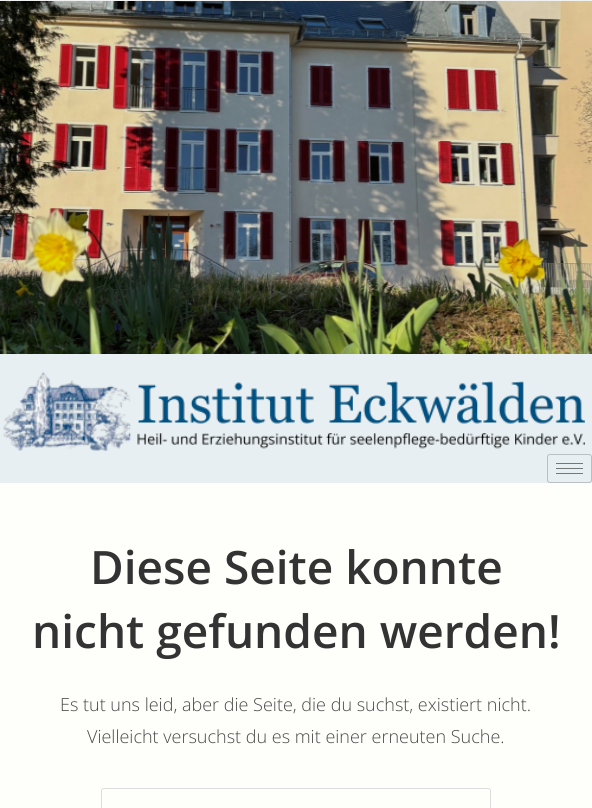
import math
import cairo

surface = cairo.ImageSurface(cairo.FORMAT_RGB24, 592, 808)
cr = cairo.Context(surface)
options = cairo.FontOptions()
options.set_hint_metrics(cairo.HINT_METRICS_OFF)
options.set_hint_style(cairo.HINT_STYLE_NONE)
cr.set_font_options(options)
cr.set_miter_limit(4)


def rgb(code):
    cr.set_source_rgb(*(v / 255 for v in bytes.fromhex(code[-6:])))


def rrect(x, y, w, h, r):
    cr.new_sub_path()
    for i, (u, v) in enumerate([(x + w - r, y + h - r), (x + r, y + h - r), (x + r, y + r), (x + w - r, y + r)]):
        cr.arc(u, v, r, i * math.pi / 2, (i + 1) * math.pi / 2)
    cr.close_path()


def image(path, x, y, w, h):
    cr.save()
    cr.set_source_surface(cairo.ImageSurface.create_from_png(path), x, y)
    cr.rectangle(x, y, w, h)
    cr.fill()
    cr.restore()


rgb("#fefffb")
cr.paint()
rgb("#f1f1f1")
cr.rectangle(0, 0, 592, 1)
cr.fill()
rgb("#ffffff")
cr.rectangle(0, 483, 592, 1)
cr.fill()
image("img/1.png", 0, 1, 592, 353)
rgb("#e7eff2")
cr.rectangle(0, 354, 592, 129)
cr.fill()
image("img/2.png", 3, 371, 582, 80)
rrect(547.5, 454.5, 44, 28, 2.5)
rgb("#b9bfc2")
cr.set_line_width(1)
cr.stroke()
for x, y, w, h, color in [
    (556, 463, 27, 1, "#747879"),
    (556, 468, 27, 1, "#747879"),
    (556, 473, 27, 1, "#747879"),
]:
    rgb(color)
    cr.rectangle(x, y, w, h)
    cr.fill()
rrect(101.5, 788.5, 389, 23, 2.5)
rgb("#dddddd")
cr.stroke()
cr.select_font_face("Open Sans SemiBold")
cr.set_font_size(46)
rgb("#333333")
cr.move_to(90, 584)
cr.show_text("Diese Seite konnte")
cr.move_to(32, 648)
cr.show_text("nicht gefunden werden!")
cr.select_font_face("Open Sans Light")
cr.set_font_size(18)
rgb("#4a4a4a")
cr.move_to(60, 711)
cr.show_text("Es tut uns leid, aber die Seite, die du suchst, existiert nicht.")
cr.move_to(87, 743)
cr.show_text("Vielleicht versuchst du es mit einer erneuten Suche.")
surface.write_to_png("page.png")
